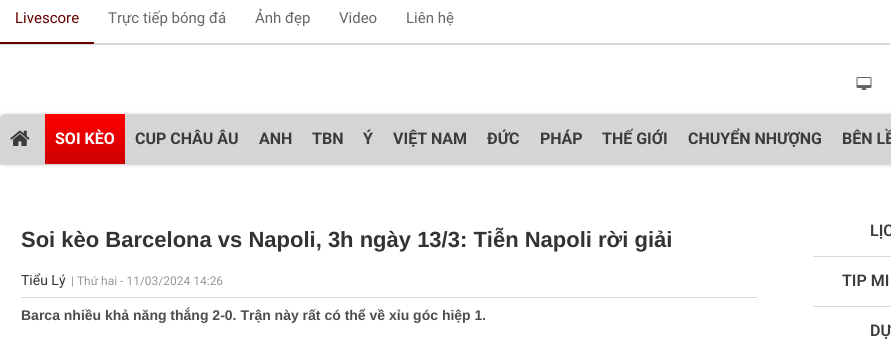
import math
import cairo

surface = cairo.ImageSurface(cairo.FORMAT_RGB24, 891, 343)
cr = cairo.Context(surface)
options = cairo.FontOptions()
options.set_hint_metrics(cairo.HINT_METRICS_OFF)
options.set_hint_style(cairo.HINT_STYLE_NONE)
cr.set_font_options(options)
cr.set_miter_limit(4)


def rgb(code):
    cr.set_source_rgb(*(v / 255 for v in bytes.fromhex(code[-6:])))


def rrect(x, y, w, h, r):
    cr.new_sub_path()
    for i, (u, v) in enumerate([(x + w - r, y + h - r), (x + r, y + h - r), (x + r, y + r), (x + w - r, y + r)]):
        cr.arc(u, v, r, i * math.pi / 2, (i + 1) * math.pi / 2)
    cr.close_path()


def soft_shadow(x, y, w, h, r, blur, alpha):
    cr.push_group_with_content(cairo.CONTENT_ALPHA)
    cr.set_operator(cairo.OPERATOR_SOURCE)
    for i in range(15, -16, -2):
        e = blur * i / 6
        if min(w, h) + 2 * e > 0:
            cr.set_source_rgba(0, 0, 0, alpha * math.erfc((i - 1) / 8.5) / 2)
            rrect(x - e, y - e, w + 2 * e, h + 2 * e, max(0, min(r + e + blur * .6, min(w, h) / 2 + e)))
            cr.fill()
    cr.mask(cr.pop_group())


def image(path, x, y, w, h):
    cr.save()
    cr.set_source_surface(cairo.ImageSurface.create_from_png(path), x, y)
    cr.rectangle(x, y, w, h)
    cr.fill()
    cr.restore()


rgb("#ffffff")
cr.paint()
rgb("#d8d8d8")
cr.rectangle(0, 43, 890, 2)
cr.fill()
rgb("#660000")
cr.rectangle(0, 42, 94, 2)
cr.fill()
image("img/1.png", 856, 77, 16, 13)
rgb("#000000")
soft_shadow(0, 114, 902, 51, 5, 2, 0.15)
rgb("#d5d5d5")
cr.new_path()
cr.move_to(5, 114)
cr.line_to(891, 114)
cr.curve_to(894, 114, 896, 116, 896, 119)
cr.line_to(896, 165)
cr.line_to(0, 165)
cr.line_to(0, 119)
cr.curve_to(0, 116, 2, 114, 5, 114)
cr.close_path()
cr.fill()
cr.set_source_rgba(1, 1, 1, 0.1)
cr.rectangle(0, 114, 891, 1)
cr.fill()
image("img/2.png", 10, 130, 20, 16)
gradient = cairo.LinearGradient(85, 114, 85, 164)
gradient.add_color_stop_rgba(0, 1, 0, 0, 1)
gradient.add_color_stop_rgba(1, 0.8, 0, 0, 1)
cr.set_source(gradient)
cr.rectangle(45, 114, 80, 50)
cr.fill()
for x, y, w, h, color in [
    (21, 297, 736, 1, "#dadada"),
    (813, 256, 78, 1, "#dadada"),
    (813, 306, 78, 1, "#dadada"),
]:
    rgb(color)
    cr.rectangle(x, y, w, h)
    cr.fill()
cr.select_font_face("Roboto")
cr.set_font_size(15)
rgb("#660000")
cr.move_to(15, 23)
cr.show_text("Livescore")
rgb("#666666")
for x, y, s in [
    (108, 23, "Trực tiếp bóng đá"),
    (255, 23, "Ảnh đẹp"),
    (339, 23, "Video"),
    (406, 23, "Liên hệ"),
]:
    cr.move_to(x, y)
    cr.show_text(s)
cr.select_font_face("Roboto", cairo.FONT_SLANT_NORMAL, cairo.FONT_WEIGHT_BOLD)
cr.set_font_size(16)
rgb("#ffffff")
cr.move_to(55, 144)
cr.show_text("SOI KÈO")
rgb("#3b3b3b")
for x, y, s in [
    (135, 144, "CUP CHÂU ÂU"),
    (259, 144, "ANH"),
    (312, 144, "TBN"),
    (363, 144, "Ý"),
    (393, 144, "VIỆT NAM"),
    (487, 144, "ĐỨC"),
    (540, 144, "PHÁP"),
    (602, 144, "THẾ GIỚI"),
    (688, 144, "CHUYỂN NHƯỢNG"),
    (842, 144, "BÊN LỀ"),
]:
    cr.move_to(x, y)
    cr.show_text(s)
cr.select_font_face("Liberation Sans", cairo.FONT_SLANT_NORMAL, cairo.FONT_WEIGHT_BOLD)
cr.set_font_size(22)
rgb("#333333")
cr.move_to(21, 247)
cr.show_text("Soi kèo Barcelona vs Napoli, 3h ngày 13/3: Tiễn Napoli rời giải")
cr.select_font_face("Roboto")
cr.set_font_size(14)
cr.move_to(21, 285)
cr.show_text("Tiểu Lý")
cr.set_font_size(12)
rgb("#979797")
cr.move_to(71, 285)
cr.show_text("| Thứ hai - 11/03/2024 14:26")
cr.select_font_face("Liberation Sans", cairo.FONT_SLANT_NORMAL, cairo.FONT_WEIGHT_BOLD)
cr.set_font_size(14)
rgb("#4d4d4d")
cr.move_to(21, 320)
cr.show_text("Barca nhiều khả năng thắng 2-0. Trận này rất có thể về xỉu góc hiệp 1.")
cr.select_font_face("Roboto SemiBold")
cr.set_font_size(16)
rgb("#3b3b3b")
for x, y, s in [
    (870, 236, "LỊC"),
    (842, 286, "TIP MI"),
    (870, 336, "DỰ"),
]:
    cr.move_to(x, y)
    cr.show_text(s)
surface.write_to_png("page.png")
